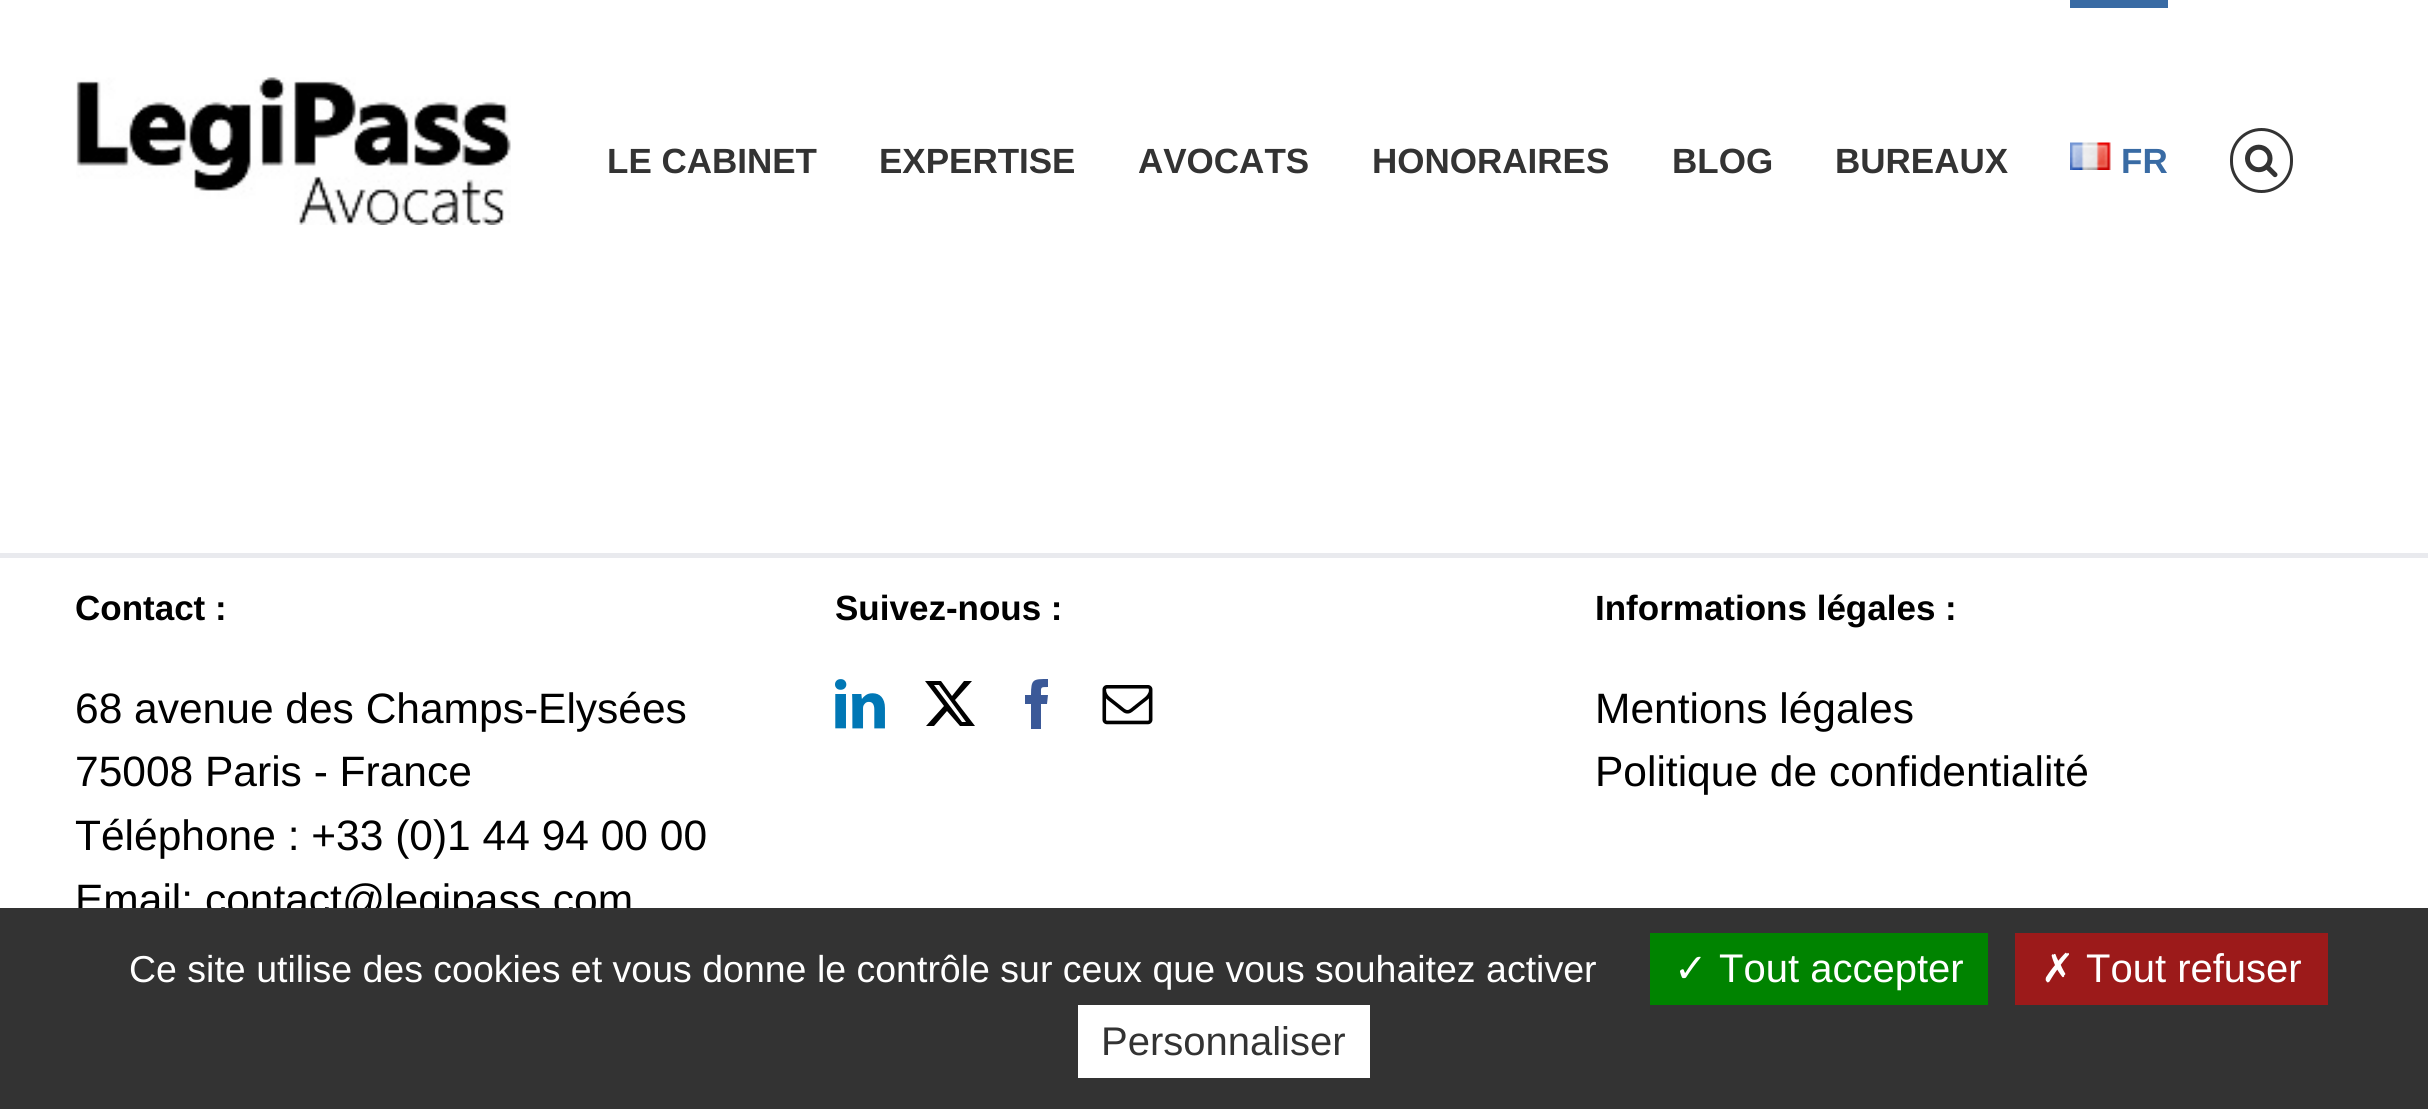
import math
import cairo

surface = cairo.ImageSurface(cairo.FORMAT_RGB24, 2428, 1109)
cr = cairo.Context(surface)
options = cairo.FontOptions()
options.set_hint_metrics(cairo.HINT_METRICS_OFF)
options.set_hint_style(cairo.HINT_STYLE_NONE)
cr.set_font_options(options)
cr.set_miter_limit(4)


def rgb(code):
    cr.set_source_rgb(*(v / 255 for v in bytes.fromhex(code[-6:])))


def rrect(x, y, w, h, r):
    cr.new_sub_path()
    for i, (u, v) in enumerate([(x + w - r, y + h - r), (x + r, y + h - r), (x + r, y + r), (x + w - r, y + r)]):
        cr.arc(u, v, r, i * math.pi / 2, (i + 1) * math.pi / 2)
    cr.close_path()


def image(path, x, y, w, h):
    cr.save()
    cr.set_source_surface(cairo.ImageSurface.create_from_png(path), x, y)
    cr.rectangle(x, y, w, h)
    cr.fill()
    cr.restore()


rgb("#ffffff")
cr.paint()
image("img/1.png", 76, 77, 435, 148)
rgb("#396ba4")
cr.rectangle(2070, 0, 98, 8)
cr.fill()
image("img/2.png", 2070, 142, 41, 28)
rrect(2231.5, 129.5, 60, 62, 30)
rgb("#333333")
cr.set_line_width(3)
cr.stroke()
image("img/3.png", 2245, 144, 33, 34)
rgb("#e9eaee")
cr.rectangle(0, 553, 2428, 5)
cr.fill()
image("img/4.png", 835, 679, 50, 50)
rgb("#000000")
cr.new_path()
cr.move_to(964, 681)
cr.line_to(972, 681)
cr.line_to(955, 700)
cr.line_to(975, 726)
cr.line_to(960, 726)
cr.line_to(947, 711)
cr.line_to(934, 726)
cr.line_to(926, 726)
cr.line_to(944, 706)
cr.line_to(925, 681)
cr.line_to(941, 681)
cr.line_to(952, 696)
cr.close_path()
cr.move_to(962, 722)
cr.line_to(966, 722)
cr.line_to(939, 685)
cr.line_to(934, 685)
cr.close_path()
cr.fill()
rgb("#3b5998")
cr.new_path()
cr.move_to(1041, 729)
cr.line_to(1031, 729)
cr.line_to(1031, 704)
cr.line_to(1025, 704)
cr.line_to(1025, 695)
cr.line_to(1031, 695)
cr.curve_to(1031, 679, 1033, 679, 1048, 679)
cr.line_to(1048, 687)
cr.curve_to(1040, 687, 1041, 687, 1041, 695)
cr.line_to(1048, 695)
cr.line_to(1047, 704)
cr.line_to(1041, 704)
cr.close_path()
cr.fill()
image("img/5.png", 1102, 685, 51, 40)
cr.select_font_face("Liberation Sans", cairo.FONT_SLANT_NORMAL, cairo.FONT_WEIGHT_BOLD)
cr.set_font_size(35)
rgb("#333333")
for x, y, s in [
    (607, 173, "LE CABINET"),
    (879, 173, "EXPERTISE"),
    (1138, 173, "AVOCATS"),
    (1372, 173, "HONORAIRES"),
    (1672, 173, "BLOG"),
    (1835, 173, "BUREAUX"),
]:
    cr.move_to(x, y)
    cr.show_text(s)
rgb("#396ba4")
cr.move_to(2121, 173)
cr.show_text("FR")
rgb("#000000")
cr.move_to(75, 620)
cr.show_text("Contact :")
cr.select_font_face("Liberation Sans")
cr.set_font_size(42.5)
for x, y, s in [
    (75, 723, "68 avenue des Champs-Elysées"),
    (75, 786, "75008 Paris - France"),
    (75, 850, "Téléphone : +33 (0)1 44 94 00 00"),
    (75, 914, "Email: contact@legipass.com"),
]:
    cr.move_to(x, y)
    cr.show_text(s)
cr.select_font_face("Liberation Sans", cairo.FONT_SLANT_NORMAL, cairo.FONT_WEIGHT_BOLD)
cr.set_font_size(35)
cr.move_to(835, 620)
cr.show_text("Suivez-nous :")
cr.move_to(1595, 620)
cr.show_text("Informations légales :")
cr.select_font_face("Liberation Sans")
cr.set_font_size(42.5)
cr.move_to(1595, 723)
cr.show_text("Mentions légales")
cr.move_to(1595, 786)
cr.show_text("Politique de confidentialité")
rgb("#333333")
cr.rectangle(0, 908, 2428, 201)
cr.fill()
cr.set_font_size(37.5)
rgb("#ffffff")
cr.move_to(129, 982)
cr.show_text("Ce site utilise des cookies et vous donne le contrôle sur ceux que vous souhaitez activer")
rgb("#008300")
cr.rectangle(1650, 933, 338, 72)
cr.fill()
cr.select_font_face("DejaVu Sans")
cr.set_font_size(40)
rgb("#ffffff")
cr.move_to(1674, 982)
cr.show_text("✓")
cr.select_font_face("Liberation Sans")
cr.move_to(1719, 982)
cr.show_text("Tout accepter")
rgb("#9c1a1a")
cr.rectangle(2015, 933, 313, 72)
cr.fill()
cr.select_font_face("DejaVu Sans")
rgb("#ffffff")
cr.move_to(2041, 982)
cr.show_text("✗")
cr.select_font_face("Liberation Sans")
cr.move_to(2086, 982)
cr.show_text("Tout refuser")
cr.rectangle(1078, 1005, 292, 73)
cr.fill()
rgb("#333333")
cr.move_to(1101, 1055)
cr.show_text("Personnaliser")
surface.write_to_png("page.png")
